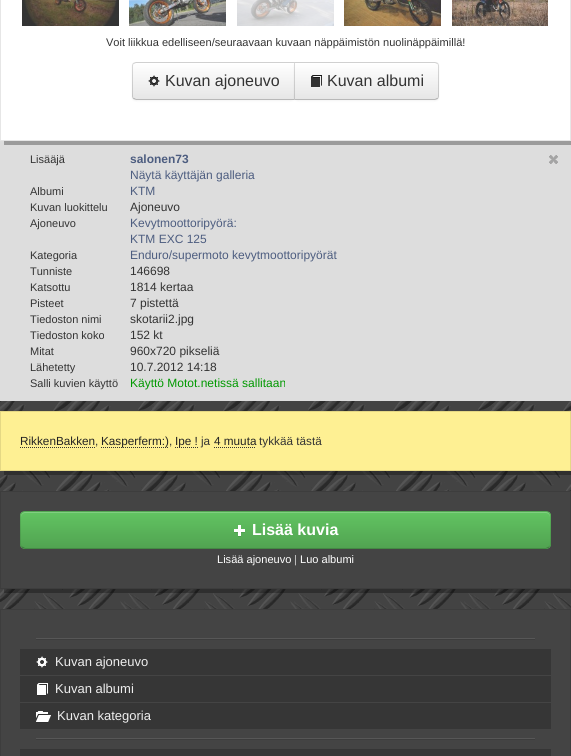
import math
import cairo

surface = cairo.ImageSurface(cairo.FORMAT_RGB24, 571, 756)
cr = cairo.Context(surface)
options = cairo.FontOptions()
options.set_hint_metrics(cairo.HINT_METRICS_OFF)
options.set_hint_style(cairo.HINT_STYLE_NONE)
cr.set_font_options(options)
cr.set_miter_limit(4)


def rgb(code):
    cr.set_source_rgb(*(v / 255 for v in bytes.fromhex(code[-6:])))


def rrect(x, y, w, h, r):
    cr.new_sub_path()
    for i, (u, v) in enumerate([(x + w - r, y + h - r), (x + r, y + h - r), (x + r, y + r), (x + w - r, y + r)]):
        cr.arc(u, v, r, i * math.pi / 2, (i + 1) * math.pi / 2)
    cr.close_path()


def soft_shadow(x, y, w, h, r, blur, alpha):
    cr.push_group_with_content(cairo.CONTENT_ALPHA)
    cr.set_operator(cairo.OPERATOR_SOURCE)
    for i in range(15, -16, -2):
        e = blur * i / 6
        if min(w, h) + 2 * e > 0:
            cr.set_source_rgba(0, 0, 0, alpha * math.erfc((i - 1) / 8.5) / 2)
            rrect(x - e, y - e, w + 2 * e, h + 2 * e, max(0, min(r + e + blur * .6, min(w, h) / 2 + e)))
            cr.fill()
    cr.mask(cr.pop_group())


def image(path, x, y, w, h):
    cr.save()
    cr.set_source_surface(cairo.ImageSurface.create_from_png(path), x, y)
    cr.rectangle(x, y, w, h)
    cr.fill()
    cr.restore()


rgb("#ffffff")
cr.paint()
image("img/1.png", 0, 401, 571, 208)
rgb("#dddddd")
cr.rectangle(0, 141, 571, 260)
cr.fill()
rgb("#9b9b9b")
cr.new_path()
cr.move_to(4, 141)
cr.line_to(4, 145)
cr.line_to(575, 145)
cr.line_to(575, -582)
cr.line_to(571, -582)
cr.line_to(571, 141)
cr.close_path()
cr.fill()
cr.rectangle(0.5, -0.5, 570, 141)
rgb("#e6e6e6")
cr.set_line_width(1)
cr.stroke()
image("img/2.png", 22, 0, 97, 26)
image("img/3.png", 129, 0, 97, 26)
image("img/4.png", 237, 0, 97, 26)
image("img/5.png", 344, 0, 97, 26)
image("img/6.png", 452, 0, 96, 26)
rgb("#000000")
soft_shadow(132, 63, 163, 38, 4, 1, 0.05)
rgb("#f5f5f5")
cr.new_path()
cr.move_to(136, 62)
cr.line_to(295, 62)
cr.line_to(295, 100)
cr.line_to(136, 100)
cr.curve_to(134, 100, 132, 98, 132, 96)
cr.line_to(132, 66)
cr.curve_to(132, 64, 134, 62, 136, 62)
cr.close_path()
cr.fill()
cr.save()
cr.new_path()
cr.move_to(136, 62)
cr.line_to(295, 62)
cr.line_to(295, 100)
cr.line_to(136, 100)
cr.curve_to(134, 100, 132, 98, 132, 96)
cr.line_to(132, 66)
cr.curve_to(132, 64, 134, 62, 136, 62)
cr.close_path()
cr.clip()
gradient = cairo.LinearGradient(214, 63, 214, 99)
gradient.add_color_stop_rgba(0, 1, 1, 1, 1)
gradient.add_color_stop_rgba(1, 0.902, 0.902, 0.902, 1)
cr.set_source(gradient)
cr.rectangle(132, 63, 162, 36)
cr.fill()
cr.restore()
cr.set_source_rgba(0, 0, 0, 0.15)
cr.new_path()
cr.move_to(136, 62)
cr.line_to(133, 63)
cr.line_to(134, 64)
cr.line_to(136, 63)
cr.line_to(294, 63)
cr.line_to(295, 62)
cr.close_path()
cr.fill()
cr.set_source_rgba(0, 0, 0, 0.25)
cr.new_path()
cr.move_to(295, 100)
cr.line_to(294, 99)
cr.line_to(136, 99)
cr.line_to(134, 98)
cr.line_to(133, 99)
cr.line_to(136, 100)
cr.close_path()
cr.fill()
cr.set_source_rgba(0, 0, 0, 0.15)
cr.new_path()
cr.move_to(132, 66)
cr.line_to(132, 96)
cr.curve_to(132, 97, 132.5, 98, 133, 99)
cr.line_to(134, 98)
cr.curve_to(133, 98, 133, 97, 133, 96)
cr.line_to(133, 66)
cr.curve_to(133, 65, 133, 64, 134, 64)
cr.line_to(133, 63)
cr.curve_to(132.5, 64, 132, 65, 132, 66)
cr.close_path()
cr.fill()
image("img/7.png", 148, 75, 12, 12)
rgb("#000000")
soft_shadow(294, 63, 145, 38, 4, 1, 0.05)
rgb("#f5f5f5")
cr.new_path()
cr.move_to(294, 62)
cr.line_to(435, 62)
cr.curve_to(437, 62, 439, 64, 439, 66)
cr.line_to(439, 96)
cr.curve_to(439, 98, 437, 100, 435, 100)
cr.line_to(294, 100)
cr.close_path()
cr.fill()
cr.save()
cr.new_path()
cr.move_to(294, 62)
cr.line_to(435, 62)
cr.curve_to(437, 62, 439, 64, 439, 66)
cr.line_to(439, 96)
cr.curve_to(439, 98, 437, 100, 435, 100)
cr.line_to(294, 100)
cr.close_path()
cr.clip()
gradient = cairo.LinearGradient(367, 63, 367, 99)
gradient.add_color_stop_rgba(0, 1, 1, 1, 1)
gradient.add_color_stop_rgba(1, 0.902, 0.902, 0.902, 1)
cr.set_source(gradient)
cr.rectangle(294, 63, 145, 36)
cr.fill()
cr.restore()
cr.set_source_rgba(0, 0, 0, 0.15)
cr.new_path()
cr.move_to(294, 62)
cr.line_to(295, 63)
cr.line_to(435, 63)
cr.line_to(437, 64)
cr.line_to(438, 63)
cr.line_to(435, 62)
cr.close_path()
cr.fill()
cr.new_path()
cr.move_to(439, 96)
cr.line_to(439, 66)
cr.curve_to(439, 65, 438.5, 64, 438, 63)
cr.line_to(437, 64)
cr.curve_to(438, 64, 438, 65, 438, 66)
cr.line_to(438, 96)
cr.curve_to(438, 97, 438, 98, 437, 98)
cr.line_to(438, 99)
cr.curve_to(438.5, 98, 439, 97, 439, 96)
cr.close_path()
cr.fill()
cr.set_source_rgba(0, 0, 0, 0.25)
cr.new_path()
cr.move_to(435, 100)
cr.line_to(438, 99)
cr.line_to(437, 98)
cr.line_to(435, 99)
cr.line_to(295, 99)
cr.line_to(294, 100)
cr.close_path()
cr.fill()
cr.set_source_rgba(0, 0, 0, 0.15)
cr.new_path()
cr.move_to(294, 62)
cr.line_to(294, 100)
cr.line_to(295, 99)
cr.line_to(295, 63)
cr.close_path()
cr.fill()
image("img/8.png", 311, 75, 11, 13)
image("img/9.png", 549, 155, 9, 9)
cr.set_source_rgba(0, 0, 0, 0.3)
cr.new_path()
cr.move_to(4, 471)
cr.line_to(4, 475)
cr.line_to(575, 475)
cr.line_to(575, 415)
cr.line_to(571, 415)
cr.line_to(571, 471)
cr.close_path()
cr.fill()
rgb("#fef093")
cr.rectangle(0.5, 411.5, 570, 59)
cr.fill_preserve()
rgb("#e5d884")
cr.stroke()
cr.new_path()
cr.move_to(20, 447.5)
cr.line_to(95, 447.5)
rgb("#333333")
cr.set_dash([1, 1])
cr.stroke()
cr.new_path()
cr.move_to(101, 447.5)
cr.line_to(169, 447.5)
cr.stroke()
cr.new_path()
cr.move_to(175, 447.5)
cr.line_to(198, 447.5)
cr.stroke()
cr.new_path()
cr.move_to(214, 447.5)
cr.line_to(256, 447.5)
cr.stroke()
cr.set_source_rgba(0, 0, 0, 0.3)
cr.new_path()
cr.move_to(4, 589)
cr.line_to(4, 593)
cr.line_to(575, 593)
cr.line_to(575, 495)
cr.line_to(571, 495)
cr.line_to(571, 589)
cr.close_path()
cr.fill()
rgb("#444444")
cr.rectangle(0.5, 491.5, 570, 97)
cr.fill_preserve()
rgb("#3d3d3d")
cr.set_dash([])
cr.stroke()
rgb("#5bb75b")
rrect(20, 511, 531, 38, 5)
cr.fill()
cr.save()
rrect(20, 511, 531, 38, 5)
cr.clip()
gradient = cairo.LinearGradient(286, 512, 286, 548)
gradient.add_color_stop_rgba(0, 0.384, 0.769, 0.384, 1)
gradient.add_color_stop_rgba(1, 0.318, 0.639, 0.318, 1)
cr.set_source(gradient)
cr.rectangle(20, 512, 531, 36)
cr.fill()
cr.restore()
rgb("#81d081")
cr.new_path()
cr.move_to(25, 513)
cr.line_to(546, 513)
cr.curve_to(548, 513, 550, 515, 550, 517)
cr.line_to(550, 516)
cr.curve_to(550, 514, 548, 512, 546, 512)
cr.line_to(25, 512)
cr.curve_to(23, 512, 21, 514, 21, 516)
cr.line_to(21, 517)
cr.curve_to(21, 515, 23, 513, 25, 513)
cr.close_path()
cr.fill()
cr.new_path()
cr.move_to(549, 547)
cr.line_to(546, 548.5)
cr.line_to(25, 548.5)
cr.line_to(22, 547)
cr.set_source_rgba(0, 0, 0, 0.25)
cr.stroke()
cr.new_path()
cr.move_to(22, 547)
cr.curve_to(21, 546.5, 20.5, 545, 20.5, 544)
cr.line_to(20.5, 516)
cr.curve_to(20.5, 515, 21, 513.5, 22, 513)
cr.curve_to(22.5, 512, 24, 511.5, 25, 511.5)
cr.line_to(546, 511.5)
cr.curve_to(547, 511.5, 548.5, 512, 549, 513)
cr.curve_to(550, 513.5, 550.5, 515, 550.5, 516)
cr.line_to(550.5, 544)
cr.curve_to(550.5, 545, 550, 546.5, 549, 547)
cr.set_source_rgba(0, 0, 0, 0.1)
cr.stroke()
image("img/10.png", 234, 525, 11, 12)
rgb("#444444")
cr.rectangle(0.5, 609.5, 570, 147)
cr.fill_preserve()
rgb("#3d3d3d")
cr.stroke()
for x, y, w, h, color in [
    (36, 638, 499, 1, "#575757"),
    (36, 639, 499, 1, "#3d3d3d"),
    (20, 649, 531, 26, "#363636"),
]:
    rgb(color)
    cr.rectangle(x, y, w, h)
    cr.fill()
image("img/11.png", 36, 656, 12, 12)
cr.rectangle(20, 676, 531, 26)
cr.fill()
image("img/12.png", 37, 683, 11, 13)
cr.rectangle(20, 703, 531, 26)
cr.fill()
image("img/13.png", 36, 711, 15, 12)
for x, y, w, h, color in [
    (36, 738, 499, 1, "#575757"),
    (36, 739, 499, 1, "#3d3d3d"),
    (20, 749, 531, 7, "#363636"),
]:
    rgb(color)
    cr.rectangle(x, y, w, h)
    cr.fill()
cr.select_font_face("Liberation Sans")
cr.set_font_size(11.05)
rgb("#333333")
cr.move_to(106, 46)
cr.show_text("Voit liikkua edelliseen/seuraavaan kuvaan näppäimistön nuolinäppäimillä!")
cr.set_font_size(16)
cr.move_to(165, 86)
cr.show_text("Kuvan ajoneuvo")
cr.move_to(327, 86)
cr.show_text("Kuvan albumi")
cr.set_font_size(11)
cr.move_to(30, 163)
cr.show_text("Lisääjä")
cr.select_font_face("Liberation Sans", cairo.FONT_SLANT_NORMAL, cairo.FONT_WEIGHT_BOLD)
cr.set_font_size(12)
rgb("#4d5d80")
cr.move_to(130, 163)
cr.show_text("salonen73")
cr.select_font_face("Liberation Sans")
cr.move_to(130, 179)
cr.show_text("Näytä käyttäjän galleria")
cr.set_font_size(11)
rgb("#333333")
cr.move_to(30, 195)
cr.show_text("Albumi")
cr.set_font_size(12)
rgb("#4d5d80")
cr.move_to(130, 195)
cr.show_text("KTM")
cr.set_font_size(11)
rgb("#333333")
cr.move_to(30, 211)
cr.show_text("Kuvan luokittelu")
cr.set_font_size(12)
cr.move_to(130, 211)
cr.show_text("Ajoneuvo")
cr.set_font_size(11)
cr.move_to(30, 227)
cr.show_text("Ajoneuvo")
cr.set_font_size(12)
rgb("#4d5d80")
cr.move_to(130, 227)
cr.show_text("Kevytmoottoripyörä:")
cr.move_to(130, 243)
cr.show_text("KTM EXC 125")
cr.set_font_size(11)
rgb("#333333")
cr.move_to(30, 259)
cr.show_text("Kategoria")
cr.set_font_size(12)
rgb("#4d5d80")
cr.move_to(130, 259)
cr.show_text("Enduro/supermoto kevytmoottoripyörät")
cr.set_font_size(11)
rgb("#333333")
cr.move_to(30, 275)
cr.show_text("Tunniste")
cr.set_font_size(12)
cr.move_to(130, 275)
cr.show_text("146698")
cr.set_font_size(11)
cr.move_to(30, 291)
cr.show_text("Katsottu")
cr.set_font_size(12)
cr.move_to(130, 291)
cr.show_text("1814 kertaa")
cr.set_font_size(11)
cr.move_to(30, 307)
cr.show_text("Pisteet")
cr.set_font_size(12)
cr.move_to(130, 307)
cr.show_text("7 pistettä")
cr.set_font_size(11)
cr.move_to(30, 323)
cr.show_text("Tiedoston nimi")
cr.set_font_size(12)
cr.move_to(130, 323)
cr.show_text("skotarii2.jpg")
cr.set_font_size(11)
cr.move_to(30, 339)
cr.show_text("Tiedoston koko")
cr.set_font_size(12)
cr.move_to(130, 339)
cr.show_text("152 kt")
cr.set_font_size(11)
cr.move_to(30, 355)
cr.show_text("Mitat")
cr.set_font_size(12)
cr.move_to(130, 355)
cr.show_text("960x720 pikseliä")
cr.set_font_size(11)
cr.move_to(30, 371)
cr.show_text("Lähetetty")
cr.set_font_size(12)
cr.move_to(130, 371)
cr.show_text("10.7.2012 14:18")
cr.set_font_size(11)
cr.move_to(30, 387)
cr.show_text("Salli kuvien käyttö")
cr.set_font_size(12)
rgb("#009900")
cr.move_to(130, 387)
cr.show_text("Käyttö Motot.netissä sallitaan")
cr.set_font_size(11.75)
rgb("#222222")
cr.move_to(20, 445)
cr.show_text("RikkenBakken")
rgb("#333333")
cr.move_to(95, 445)
cr.show_text(",")
rgb("#222222")
cr.move_to(101, 445)
cr.show_text("Kasperferm:)")
rgb("#333333")
cr.move_to(169, 445)
cr.show_text(",")
rgb("#222222")
cr.move_to(175, 445)
cr.show_text("Ipe !")
rgb("#333333")
cr.move_to(201, 445)
cr.show_text("ja")
rgb("#222222")
cr.move_to(214, 445)
cr.show_text("4 muuta")
rgb("#333333")
cr.move_to(259, 445)
cr.show_text("tykkää tästä")
cr.select_font_face("Liberation Sans", cairo.FONT_SLANT_NORMAL, cairo.FONT_WEIGHT_BOLD)
cr.set_font_size(16)
rgb("#ffffff")
cr.move_to(252, 535)
cr.show_text("Lisää kuvia")
cr.select_font_face("Liberation Sans")
cr.set_font_size(11.05)
cr.move_to(217, 563)
cr.show_text("Lisää ajoneuvo")
rgb("#cccccc")
cr.move_to(294, 563)
cr.show_text("|")
rgb("#ffffff")
cr.move_to(300, 563)
cr.show_text("Luo albumi")
cr.set_font_size(13)
rgb("#eeeeee")
for x, y, s in [
    (55, 666, "Kuvan ajoneuvo"),
    (55, 693, "Kuvan albumi"),
    (57, 720, "Kuvan kategoria"),
]:
    cr.move_to(x, y)
    cr.show_text(s)
surface.write_to_png("page.png")
